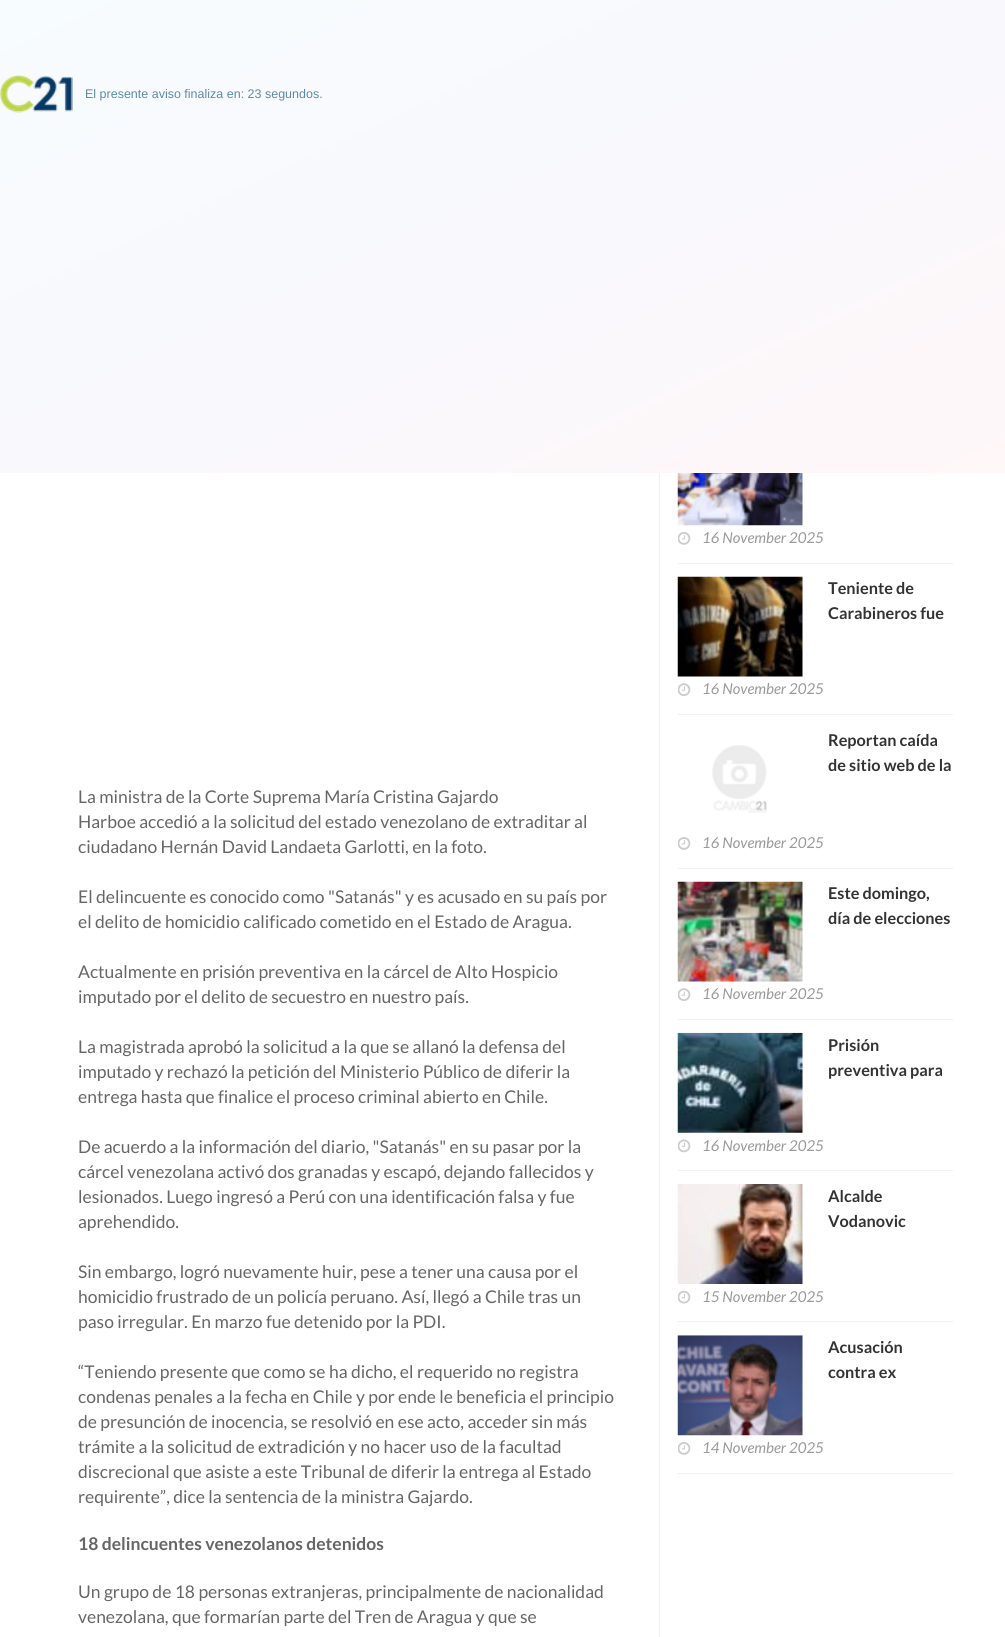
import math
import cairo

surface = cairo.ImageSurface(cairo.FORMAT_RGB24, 1005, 1637)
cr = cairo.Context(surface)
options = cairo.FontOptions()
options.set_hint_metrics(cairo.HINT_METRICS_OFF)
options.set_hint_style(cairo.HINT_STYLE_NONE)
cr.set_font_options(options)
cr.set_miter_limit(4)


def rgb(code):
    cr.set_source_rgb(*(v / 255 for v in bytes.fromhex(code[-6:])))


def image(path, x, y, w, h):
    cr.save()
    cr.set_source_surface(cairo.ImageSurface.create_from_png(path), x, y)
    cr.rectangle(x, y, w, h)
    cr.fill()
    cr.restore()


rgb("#ffffff")
cr.paint()
gradient = cairo.LinearGradient(321, -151, 684, 623)
gradient.add_color_stop_rgba(0, 0.969, 0.988, 0.996, 1)
gradient.add_color_stop_rgba(0.5, 0.973, 0.973, 0.992, 1)
gradient.add_color_stop_rgba(1, 1, 0.969, 0.973, 1)
cr.set_source(gradient)
cr.rectangle(0, 0, 1005, 473)
cr.fill()
image("img/1.png", 0, 75, 73, 38)
rgb("#f0f0f0")
cr.rectangle(659, 473, 1, 1164)
cr.fill()
cr.rectangle(678, 563, 275, 1)
cr.fill()
image("img/2.png", 677, 473, 126, 53)
image("img/3.png", 678, 532, 13, 13)
cr.rectangle(678, 714, 275, 1)
cr.fill()
image("img/4.png", 677, 576, 126, 101)
image("img/5.png", 678, 683, 13, 13)
cr.rectangle(678, 868, 275, 1)
cr.fill()
image("img/3.png", 678, 837, 13, 13)
image("img/6.png", 712, 745, 55, 68)
cr.rectangle(678, 1019, 275, 1)
cr.fill()
image("img/7.png", 677, 881, 126, 101)
image("img/5.png", 678, 988, 13, 13)
cr.rectangle(678, 1170, 275, 1)
cr.fill()
image("img/8.png", 677, 1032, 126, 101)
image("img/9.png", 678, 1139, 13, 14)
cr.rectangle(678, 1321, 275, 1)
cr.fill()
image("img/10.png", 677, 1184, 126, 100)
image("img/11.png", 678, 1290, 13, 14)
cr.rectangle(678, 1473, 275, 1)
cr.fill()
image("img/12.png", 677, 1335, 126, 101)
image("img/3.png", 678, 1442, 13, 13)
cr.select_font_face("Liberation Sans")
cr.set_font_size(12.5)
rgb("#5d8aa8")
cr.move_to(85, 98)
cr.show_text("El presente aviso finaliza en: 23 segundos.")
cr.select_font_face("Lato")
cr.set_font_size(17.5)
rgb("#666666")
for x, y, s in [
    (78, 803, "La ministra de la Corte Suprema María Cristina Gajardo"),
    (78, 828, "Harboe accedió a la solicitud del estado venezolano de extraditar al"),
    (78, 853, "ciudadano Hernán David Landaeta Garlotti, en la foto."),
    (78, 903, "El delincuente es conocido como \"Satanás\" y es acusado en su país por"),
    (78, 928, "el delito de homicidio calificado cometido en el Estado de Aragua."),
    (78, 978, "Actualmente en prisión preventiva en la cárcel de Alto Hospicio"),
    (78, 1003, "imputado por el delito de secuestro en nuestro país."),
    (78, 1053, "La magistrada aprobó la solicitud a la que se allanó la defensa del"),
    (78, 1078, "imputado y rechazó la petición del Ministerio Público de diferir la"),
    (78, 1103, "entrega hasta que finalice el proceso criminal abierto en Chile."),
    (78, 1153, "De acuerdo a la información del diario, \"Satanás\" en su pasar por la"),
    (78, 1178, "cárcel venezolana activó dos granadas y escapó, dejando fallecidos y"),
    (78, 1203, "lesionados. Luego ingresó a Perú con una identificación falsa y fue"),
    (78, 1228, "aprehendido."),
    (78, 1278, "Sin embargo, logró nuevamente huir, pese a tener una causa por el"),
    (78, 1303, "homicidio frustrado de un policía peruano. Así, llegó a Chile tras un"),
    (78, 1328, "paso irregular. En marzo fue detenido por la PDI."),
    (78, 1378, "“Teniendo presente que como se ha dicho, el requerido no registra"),
    (78, 1403, "condenas penales a la fecha en Chile y por ende le beneficia el principio"),
    (78, 1428, "de presunción de inocencia, se resolvió en ese acto, acceder sin más"),
    (78, 1453, "trámite a la solicitud de extradición y no hacer uso de la facultad"),
    (78, 1478, "discrecional que asiste a este Tribunal de diferir la entrega al Estado"),
    (78, 1503, "requirente”, dice la sentencia de la ministra Gajardo."),
]:
    cr.move_to(x, y)
    cr.show_text(s)
cr.select_font_face("Lato", cairo.FONT_SLANT_NORMAL, cairo.FONT_WEIGHT_BOLD)
cr.move_to(78, 1550)
cr.show_text("18 delincuentes venezolanos detenidos")
cr.select_font_face("Lato")
cr.move_to(78, 1598)
cr.show_text("Un grupo de 18 personas extranjeras, principalmente de nacionalidad")
cr.move_to(78, 1623)
cr.show_text("venezolana, que formarían parte del Tren de Aragua y que se")
cr.select_font_face("Lato", cairo.FONT_SLANT_ITALIC)
cr.set_font_size(15)
rgb("#999999")
cr.move_to(702, 543)
cr.show_text("16 November 2025")
cr.select_font_face("Lato", cairo.FONT_SLANT_NORMAL, cairo.FONT_WEIGHT_BOLD)
cr.set_font_size(16.25)
rgb("#333333")
cr.move_to(828, 594)
cr.show_text("Teniente de")
cr.move_to(828, 619)
cr.show_text("Carabineros fue")
cr.select_font_face("Lato", cairo.FONT_SLANT_ITALIC)
cr.set_font_size(15)
rgb("#999999")
cr.move_to(702, 694)
cr.show_text("16 November 2025")
cr.select_font_face("Lato", cairo.FONT_SLANT_NORMAL, cairo.FONT_WEIGHT_BOLD)
cr.set_font_size(16.25)
rgb("#333333")
cr.move_to(828, 746)
cr.show_text("Reportan caída")
cr.move_to(828, 771)
cr.show_text("de sitio web de la")
cr.select_font_face("Lato", cairo.FONT_SLANT_ITALIC)
cr.set_font_size(15)
rgb("#999999")
cr.move_to(702, 848)
cr.show_text("16 November 2025")
cr.select_font_face("Lato", cairo.FONT_SLANT_NORMAL, cairo.FONT_WEIGHT_BOLD)
cr.set_font_size(16.25)
rgb("#333333")
cr.move_to(828, 899)
cr.show_text("Este domingo,")
cr.move_to(828, 924)
cr.show_text("día de elecciones")
cr.select_font_face("Lato", cairo.FONT_SLANT_ITALIC)
cr.set_font_size(15)
rgb("#999999")
cr.move_to(702, 999)
cr.show_text("16 November 2025")
cr.select_font_face("Lato", cairo.FONT_SLANT_NORMAL, cairo.FONT_WEIGHT_BOLD)
cr.set_font_size(16.25)
rgb("#333333")
cr.move_to(828, 1051)
cr.show_text("Prisión")
cr.move_to(828, 1076)
cr.show_text("preventiva para")
cr.select_font_face("Lato", cairo.FONT_SLANT_ITALIC)
cr.set_font_size(15)
rgb("#999999")
cr.move_to(702, 1151)
cr.show_text("16 November 2025")
cr.select_font_face("Lato", cairo.FONT_SLANT_NORMAL, cairo.FONT_WEIGHT_BOLD)
cr.set_font_size(16.25)
rgb("#333333")
cr.move_to(828, 1202)
cr.show_text("Alcalde")
cr.move_to(828, 1227)
cr.show_text("Vodanovic")
cr.select_font_face("Lato", cairo.FONT_SLANT_ITALIC)
cr.set_font_size(15)
rgb("#999999")
cr.move_to(702, 1302)
cr.show_text("15 November 2025")
cr.select_font_face("Lato", cairo.FONT_SLANT_NORMAL, cairo.FONT_WEIGHT_BOLD)
cr.set_font_size(16.25)
rgb("#333333")
cr.move_to(828, 1353)
cr.show_text("Acusación")
cr.move_to(828, 1378)
cr.show_text("contra ex")
cr.select_font_face("Lato", cairo.FONT_SLANT_ITALIC)
cr.set_font_size(15)
rgb("#999999")
cr.move_to(702, 1453)
cr.show_text("14 November 2025")
surface.write_to_png("page.png")
